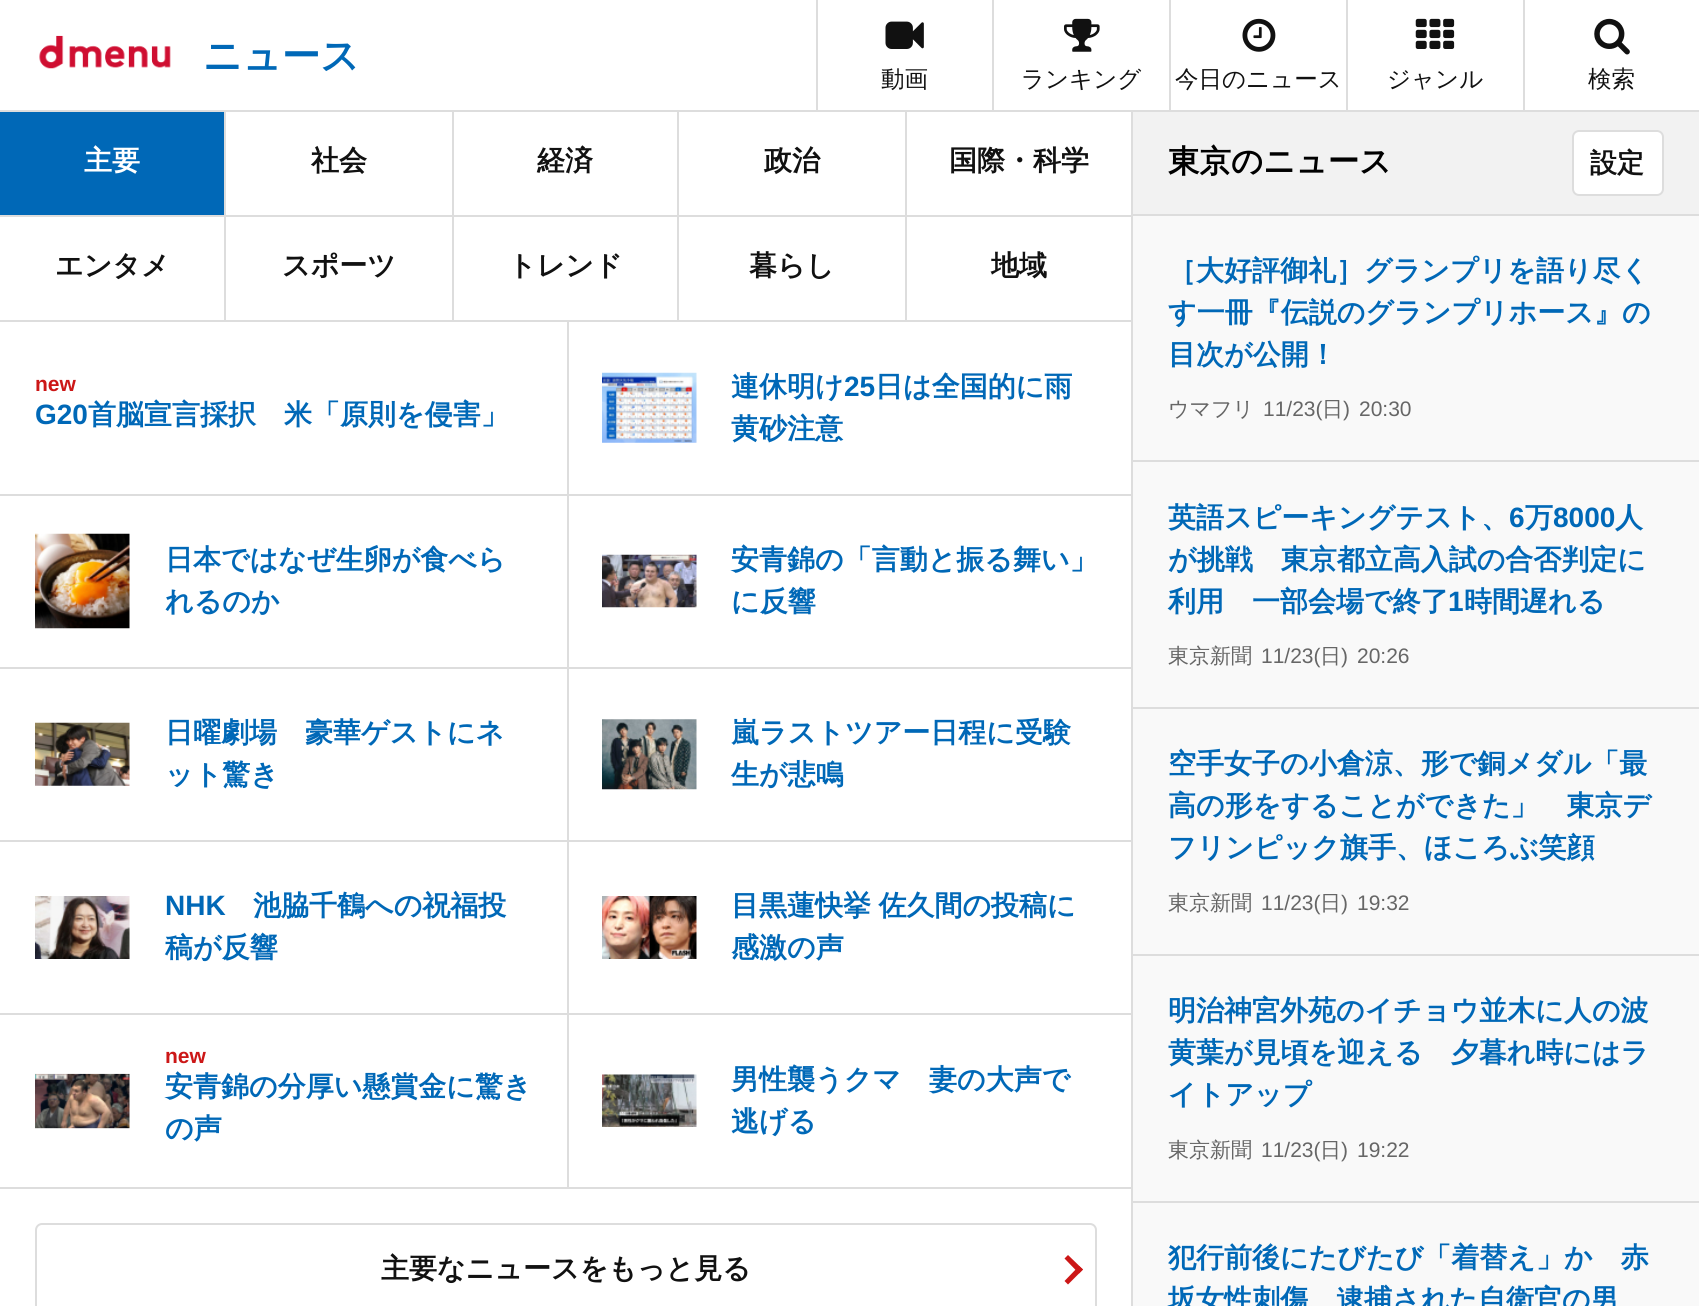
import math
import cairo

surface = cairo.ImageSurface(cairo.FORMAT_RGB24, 1699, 1306)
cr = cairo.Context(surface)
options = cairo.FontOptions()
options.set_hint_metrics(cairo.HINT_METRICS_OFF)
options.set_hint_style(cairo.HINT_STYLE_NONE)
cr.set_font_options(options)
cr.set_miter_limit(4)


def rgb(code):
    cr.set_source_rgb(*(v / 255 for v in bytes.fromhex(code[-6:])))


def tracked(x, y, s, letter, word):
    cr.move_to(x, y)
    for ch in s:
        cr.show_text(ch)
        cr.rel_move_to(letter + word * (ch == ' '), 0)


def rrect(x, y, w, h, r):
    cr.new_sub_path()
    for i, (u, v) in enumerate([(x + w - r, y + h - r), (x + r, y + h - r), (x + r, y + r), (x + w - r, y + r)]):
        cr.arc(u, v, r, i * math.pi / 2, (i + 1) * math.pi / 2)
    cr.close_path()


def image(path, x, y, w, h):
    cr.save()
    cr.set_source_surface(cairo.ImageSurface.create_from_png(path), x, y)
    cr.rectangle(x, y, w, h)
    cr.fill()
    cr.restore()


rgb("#ffffff")
cr.paint()
rgb("#dddddd")
cr.rectangle(0, 110, 1699, 2)
cr.fill()
image("img/1.png", 39, 35, 132, 34)
cr.rectangle(816, 0, 2, 110)
cr.fill()
image("img/2.png", 885, 21, 39, 28)
cr.rectangle(992, 0, 2, 110)
cr.fill()
image("img/3.png", 1064, 18, 36, 34)
cr.rectangle(1169, 0, 2, 110)
cr.fill()
image("img/4.png", 1242, 18, 34, 34)
cr.rectangle(1346, 0, 2, 110)
cr.fill()
image("img/5.png", 1415, 18, 40, 31)
cr.rectangle(1523, 0, 2, 110)
cr.fill()
image("img/6.png", 1594, 18, 36, 37)
for x, y, w, h, color in [
    (0, 112, 224, 103, "#0068b7"),
    (224, 112, 2, 210, "#dddddd"),
    (0, 215, 226, 2, "#dddddd"),
    (452, 112, 2, 210, "#dddddd"),
    (226, 215, 227, 2, "#dddddd"),
    (677, 112, 2, 210, "#dddddd"),
    (453, 215, 226, 2, "#dddddd"),
    (905, 112, 2, 210, "#dddddd"),
    (679, 215, 453, 2, "#dddddd"),
    (0, 320, 1132, 2, "#dddddd"),
    (0, 494, 1132, 2, "#dddddd"),
    (0, 667, 1132, 2, "#dddddd"),
    (0, 840, 1132, 2, "#dddddd"),
    (0, 1013, 1132, 2, "#dddddd"),
    (567, 322, 2, 866, "#dddddd"),
]:
    rgb(color)
    cr.rectangle(x, y, w, h)
    cr.fill()
image("img/7.png", 602, 372, 95, 71)
image("img/8.png", 35, 533, 95, 96)
image("img/9.png", 602, 554, 95, 54)
image("img/10.png", 35, 722, 95, 64)
image("img/11.png", 602, 719, 95, 71)
image("img/12.png", 35, 896, 95, 63)
image("img/13.png", 602, 896, 95, 63)
image("img/14.png", 35, 1073, 95, 56)
image("img/15.png", 602, 1074, 95, 53)
cr.rectangle(0, 1187, 1132, 2)
cr.fill()
rrect(36, 1224, 1060, 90, 6)
cr.stroke()
rgb("#cc1717")
cr.new_path()
cr.move_to(1068, 1255)
cr.line_to(1083, 1269.5)
cr.line_to(1079, 1273.5)
cr.line_to(1064.5, 1258.5)
cr.close_path()
cr.fill()
cr.new_path()
cr.move_to(1079, 1266)
cr.line_to(1083, 1269.5)
cr.line_to(1068, 1284.5)
cr.line_to(1064.5, 1281)
cr.close_path()
cr.fill()
for x, y, w, h, color in [
    (1132, 214, 567, 2, "#dddddd"),
    (1133, 216, 566, 1090, "#f9f9f9"),
    (1132, 460, 567, 2, "#dddddd"),
    (1132, 707, 567, 2, "#dddddd"),
    (1132, 954, 567, 2, "#dddddd"),
    (1132, 1201, 567, 2, "#dddddd"),
    (1131, 112, 2, 1194, "#dddddd"),
    (1133, 112, 566, 102, "#f2f2f2"),
]:
    rgb(color)
    cr.rectangle(x, y, w, h)
    cr.fill()
rgb("#ffffff")
rrect(1573, 131, 90, 64, 6)
cr.fill_preserve()
rgb("#dddddd")
cr.stroke()
cr.select_font_face("WenQuanYi Zen Hei", cairo.FONT_SLANT_NORMAL, cairo.FONT_WEIGHT_BOLD)
cr.set_font_size(38.5)
rgb("#0068b7")
cr.move_to(203, 69)
cr.show_text("ニュース")
cr.select_font_face("WenQuanYi Zen Hei Medium")
cr.set_font_size(23.5)
rgb("#111111")
for x, y, s in [
    (881, 87, "動画"),
    (1021, 87, "ランキング"),
    (1175, 87, "今日のニュース"),
    (1387, 87, "ジャンル"),
    (1588, 87, "検索"),
]:
    cr.move_to(x, y)
    cr.show_text(s)
cr.select_font_face("WenQuanYi Zen Hei", cairo.FONT_SLANT_NORMAL, cairo.FONT_WEIGHT_BOLD)
cr.set_font_size(28)
rgb("#ffffff")
cr.move_to(84, 170)
cr.show_text("主要")
rgb("#111111")
for x, y, s in [
    (311, 170, "社会"),
    (537, 170, "経済"),
    (764, 170, "政治"),
    (949, 170, "国際・科学"),
    (55, 275, "エンタメ"),
    (282, 275, "スポーツ"),
    (508, 275, "トレンド"),
    (749, 275, "暮らし"),
    (991, 275, "地域"),
]:
    cr.move_to(x, y)
    cr.show_text(s)
cr.select_font_face("Liberation Sans", cairo.FONT_SLANT_NORMAL, cairo.FONT_WEIGHT_BOLD)
cr.set_font_size(21)
rgb("#cc1717")
cr.move_to(35, 391)
cr.show_text("new")
cr.set_font_size(28)
rgb("#0068b7")
cr.move_to(35, 424)
cr.show_text("G20")
cr.select_font_face("WenQuanYi Zen Hei", cairo.FONT_SLANT_NORMAL, cairo.FONT_WEIGHT_BOLD)
cr.move_to(88, 424)
cr.show_text("首脳宣言採択　米「原則を侵害」")
cr.move_to(731, 396)
cr.show_text("連休明け")
cr.select_font_face("Liberation Sans", cairo.FONT_SLANT_NORMAL, cairo.FONT_WEIGHT_BOLD)
cr.move_to(844, 396)
cr.show_text("25")
cr.select_font_face("WenQuanYi Zen Hei", cairo.FONT_SLANT_NORMAL, cairo.FONT_WEIGHT_BOLD)
for x, y, s in [
    (875, 396, "日は全国的に雨"),
    (731, 438, "黄砂注意"),
    (165, 569, "日本ではなぜ生卵が食べら"),
    (165, 611, "れるのか"),
    (731, 569, "安青錦の「言動と振る舞い」"),
    (731, 611, "に反響"),
    (165, 742, "日曜劇場　豪華ゲストにネ"),
    (165, 784, "ット驚き"),
    (731, 742, "嵐ラストツアー日程に受験"),
    (731, 784, "生が悲鳴"),
]:
    cr.move_to(x, y)
    cr.show_text(s)
cr.select_font_face("Liberation Sans", cairo.FONT_SLANT_NORMAL, cairo.FONT_WEIGHT_BOLD)
cr.move_to(165, 915)
cr.show_text("NHK")
cr.select_font_face("WenQuanYi Zen Hei", cairo.FONT_SLANT_NORMAL, cairo.FONT_WEIGHT_BOLD)
cr.move_to(253, 915)
cr.show_text("池脇千鶴への祝福投")
cr.move_to(165, 957)
cr.show_text("稿が反響")
tracked(731, 915, "目黒蓮快挙 佐久間の投稿に", 0, -1)
cr.move_to(731, 957)
cr.show_text("感激の声")
cr.select_font_face("Liberation Sans", cairo.FONT_SLANT_NORMAL, cairo.FONT_WEIGHT_BOLD)
cr.set_font_size(21)
rgb("#cc1717")
cr.move_to(165, 1063)
cr.show_text("new")
cr.select_font_face("WenQuanYi Zen Hei", cairo.FONT_SLANT_NORMAL, cairo.FONT_WEIGHT_BOLD)
cr.set_font_size(28)
rgb("#0068b7")
for x, y, s in [
    (165, 1096, "安青錦の分厚い懸賞金に驚き"),
    (165, 1138, "の声"),
    (731, 1089, "男性襲うクマ　妻の大声で"),
    (731, 1131, "逃げる"),
]:
    cr.move_to(x, y)
    cr.show_text(s)
rgb("#111111")
cr.move_to(381, 1278)
cr.show_text("主要なニュースをもっと見る")
cr.set_font_size(31.5)
rgb("#000000")
cr.move_to(1168, 172)
cr.show_text("東京のニュース")
cr.set_font_size(27)
rgb("#111111")
cr.move_to(1590, 172)
cr.show_text("設定")
cr.set_font_size(28)
rgb("#0068b7")
for x, y, s in [
    (1168, 280, "［大好評御礼］グランプリを語り尽く"),
    (1168, 322, "す一冊『伝説のグランプリホース』の"),
    (1168, 364, "目次が公開！"),
]:
    cr.move_to(x, y)
    cr.show_text(s)
cr.select_font_face("WenQuanYi Zen Hei Medium")
cr.set_font_size(21)
rgb("#666666")
cr.move_to(1168, 416)
cr.show_text("ウマフリ")
cr.select_font_face("Liberation Sans")
cr.move_to(1263, 416)
cr.show_text("11/23(")
cr.select_font_face("WenQuanYi Zen Hei Medium")
cr.move_to(1322, 416)
cr.show_text("日")
cr.select_font_face("Liberation Sans")
cr.move_to(1343, 416)
cr.show_text(")")
cr.move_to(1359, 416)
cr.show_text("20:30")
cr.select_font_face("WenQuanYi Zen Hei", cairo.FONT_SLANT_NORMAL, cairo.FONT_WEIGHT_BOLD)
cr.set_font_size(28)
rgb("#0068b7")
cr.move_to(1168, 527)
cr.show_text("英語スピーキングテスト、")
cr.select_font_face("Liberation Sans", cairo.FONT_SLANT_NORMAL, cairo.FONT_WEIGHT_BOLD)
cr.move_to(1509, 527)
cr.show_text("6")
cr.select_font_face("WenQuanYi Zen Hei", cairo.FONT_SLANT_NORMAL, cairo.FONT_WEIGHT_BOLD)
cr.move_to(1525, 527)
cr.show_text("万")
cr.select_font_face("Liberation Sans", cairo.FONT_SLANT_NORMAL, cairo.FONT_WEIGHT_BOLD)
cr.move_to(1553, 527)
cr.show_text("8000")
cr.select_font_face("WenQuanYi Zen Hei", cairo.FONT_SLANT_NORMAL, cairo.FONT_WEIGHT_BOLD)
for x, y, s in [
    (1615, 527, "人"),
    (1168, 569, "が挑戦　東京都立高入試の合否判定に"),
    (1168, 611, "利用　一部会場で終了"),
]:
    cr.move_to(x, y)
    cr.show_text(s)
cr.select_font_face("Liberation Sans", cairo.FONT_SLANT_NORMAL, cairo.FONT_WEIGHT_BOLD)
cr.move_to(1448, 611)
cr.show_text("1")
cr.select_font_face("WenQuanYi Zen Hei", cairo.FONT_SLANT_NORMAL, cairo.FONT_WEIGHT_BOLD)
cr.move_to(1464, 611)
cr.show_text("時間遅れる")
cr.select_font_face("WenQuanYi Zen Hei Medium")
cr.set_font_size(21)
rgb("#666666")
cr.move_to(1168, 663)
cr.show_text("東京新聞")
cr.select_font_face("Liberation Sans")
cr.move_to(1261, 663)
cr.show_text("11/23(")
cr.select_font_face("WenQuanYi Zen Hei Medium")
cr.move_to(1320, 663)
cr.show_text("日")
cr.select_font_face("Liberation Sans")
cr.move_to(1341, 663)
cr.show_text(")")
cr.move_to(1357, 663)
cr.show_text("20:26")
cr.select_font_face("WenQuanYi Zen Hei", cairo.FONT_SLANT_NORMAL, cairo.FONT_WEIGHT_BOLD)
cr.set_font_size(28)
rgb("#0068b7")
for x, y, s in [
    (1168, 773, "空手女子の小倉涼、形で銅メダル「最"),
    (1168, 815, "高の形をすることができた」　東京デ"),
    (1168, 857, "フリンピック旗手、ほころぶ笑顔"),
]:
    cr.move_to(x, y)
    cr.show_text(s)
cr.select_font_face("WenQuanYi Zen Hei Medium")
cr.set_font_size(21)
rgb("#666666")
cr.move_to(1168, 910)
cr.show_text("東京新聞")
cr.select_font_face("Liberation Sans")
cr.move_to(1261, 910)
cr.show_text("11/23(")
cr.select_font_face("WenQuanYi Zen Hei Medium")
cr.move_to(1320, 910)
cr.show_text("日")
cr.select_font_face("Liberation Sans")
cr.move_to(1341, 910)
cr.show_text(")")
cr.move_to(1357, 910)
cr.show_text("19:32")
cr.select_font_face("WenQuanYi Zen Hei", cairo.FONT_SLANT_NORMAL, cairo.FONT_WEIGHT_BOLD)
cr.set_font_size(28)
rgb("#0068b7")
for x, y, s in [
    (1168, 1020, "明治神宮外苑のイチョウ並木に人の波"),
    (1168, 1062, "黄葉が見頃を迎える　夕暮れ時にはラ"),
    (1168, 1104, "イトアップ"),
]:
    cr.move_to(x, y)
    cr.show_text(s)
cr.select_font_face("WenQuanYi Zen Hei Medium")
cr.set_font_size(21)
rgb("#666666")
cr.move_to(1168, 1157)
cr.show_text("東京新聞")
cr.select_font_face("Liberation Sans")
cr.move_to(1261, 1157)
cr.show_text("11/23(")
cr.select_font_face("WenQuanYi Zen Hei Medium")
cr.move_to(1320, 1157)
cr.show_text("日")
cr.select_font_face("Liberation Sans")
cr.move_to(1341, 1157)
cr.show_text(")")
cr.move_to(1357, 1157)
cr.show_text("19:22")
cr.select_font_face("WenQuanYi Zen Hei", cairo.FONT_SLANT_NORMAL, cairo.FONT_WEIGHT_BOLD)
cr.set_font_size(28)
rgb("#0068b7")
cr.move_to(1168, 1267)
cr.show_text("犯行前後にたびたび「着替え」か　赤")
cr.move_to(1168, 1309)
cr.show_text("坂女性刺傷、逮捕された自衛官の男")
surface.write_to_png("page.png")
